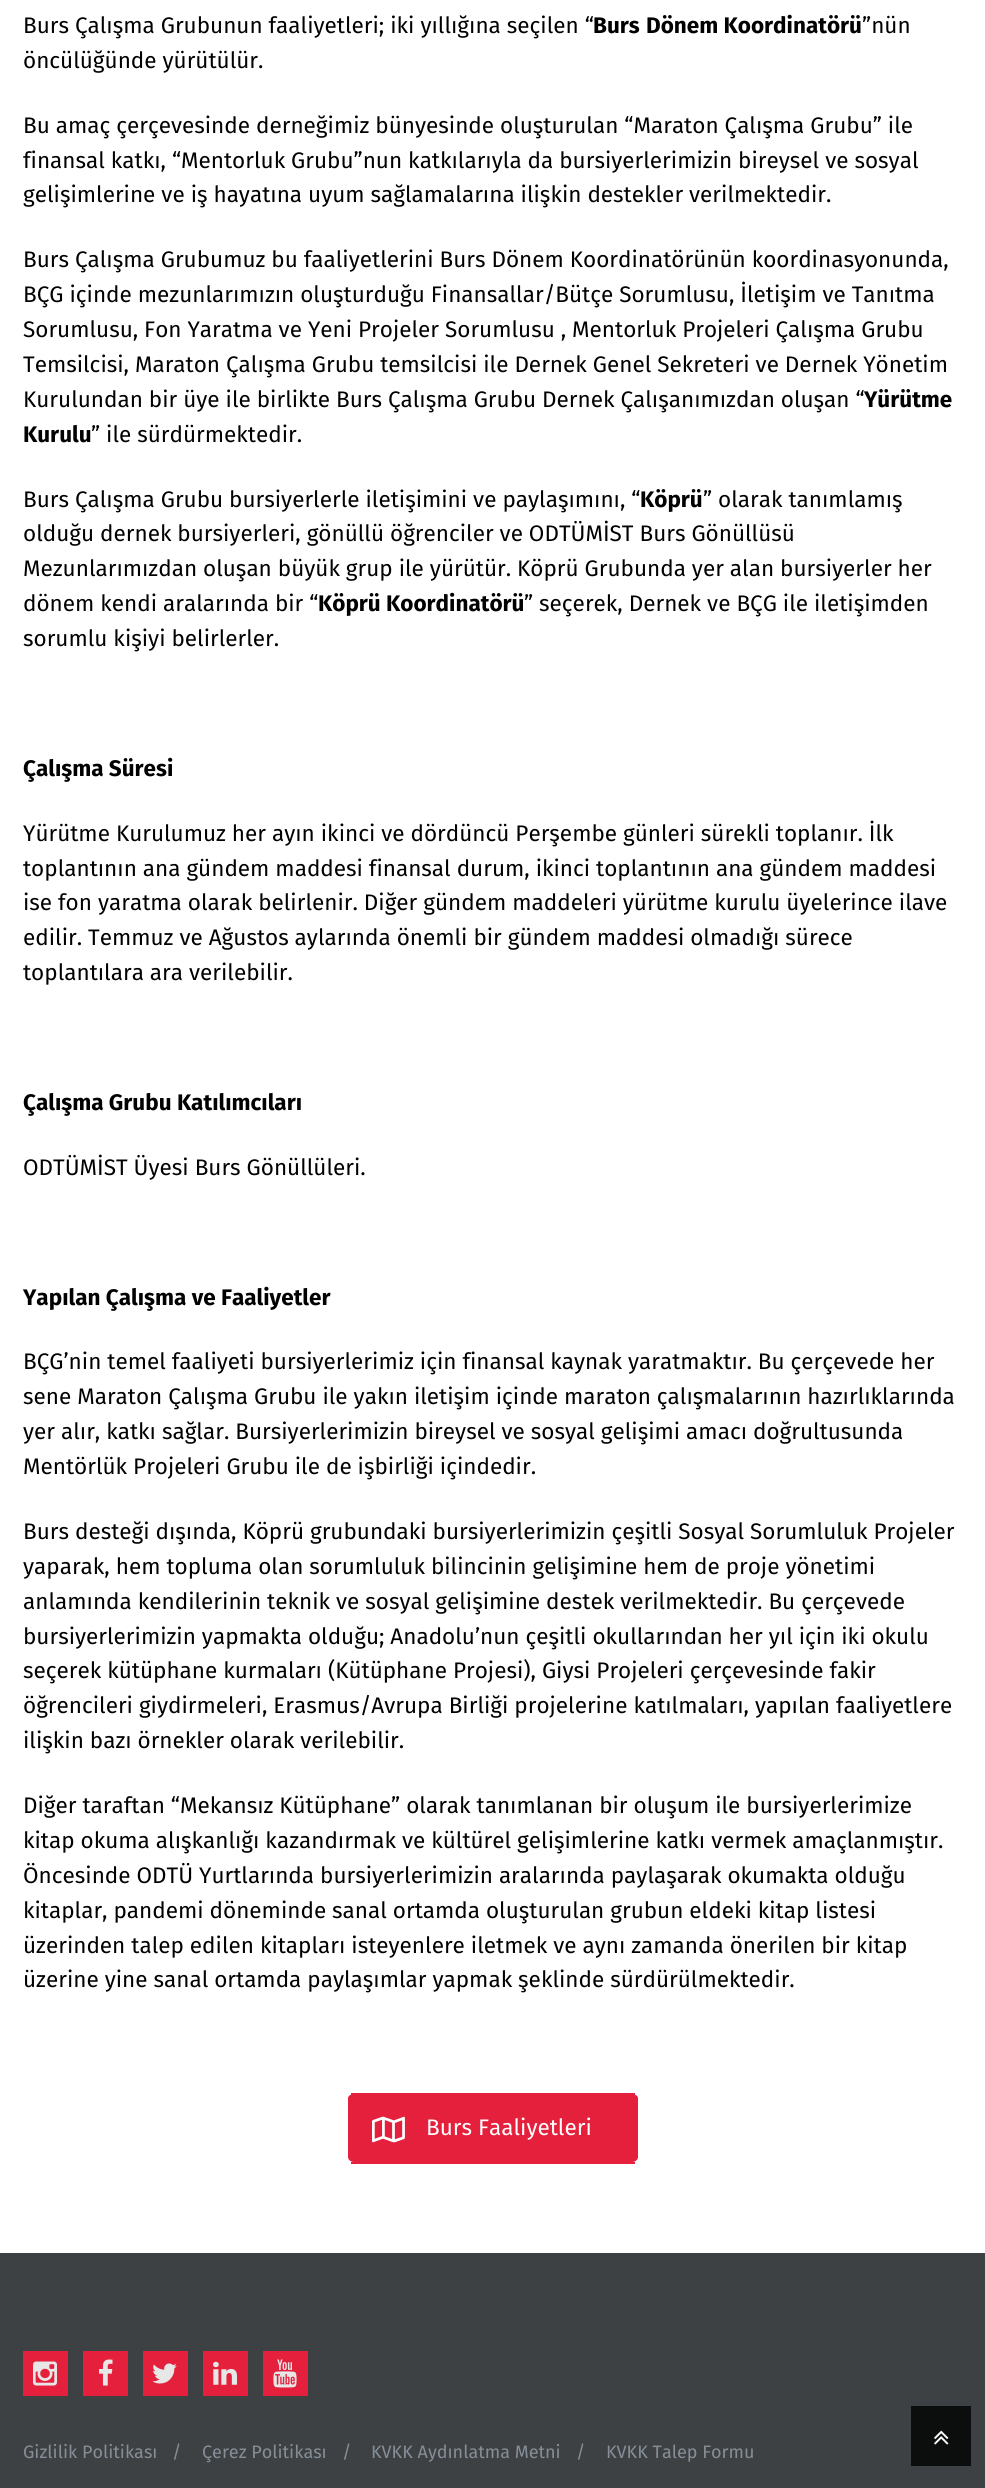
import math
import cairo

surface = cairo.ImageSurface(cairo.FORMAT_RGB24, 985, 2488)
cr = cairo.Context(surface)
options = cairo.FontOptions()
options.set_hint_metrics(cairo.HINT_METRICS_OFF)
options.set_hint_style(cairo.HINT_STYLE_NONE)
cr.set_font_options(options)
cr.set_miter_limit(4)


def rgb(code):
    cr.set_source_rgb(*(v / 255 for v in bytes.fromhex(code[-6:])))


def image(path, x, y, w, h):
    cr.save()
    cr.set_source_surface(cairo.ImageSurface.create_from_png(path), x, y)
    cr.rectangle(x, y, w, h)
    cr.fill()
    cr.restore()


rgb("#ffffff")
cr.paint()
rgb("#e5203c")
cr.new_path()
cr.move_to(354, 2094)
cr.line_to(632, 2094)
cr.curve_to(635, 2094, 638, 2096, 638, 2098)
cr.line_to(638, 2157)
cr.curve_to(638, 2160, 635, 2162, 632, 2162)
cr.line_to(354, 2162)
cr.curve_to(351, 2162, 348, 2160, 348, 2157)
cr.line_to(348, 2098)
cr.curve_to(348, 2096, 351, 2094, 354, 2094)
cr.close_path()
cr.fill()
cr.rectangle(351, 2093, 284, 2)
cr.fill()
cr.rectangle(351, 2162, 284, 2)
cr.fill()
image("img/1.png", 372, 2116, 33, 27)
rgb("#3d4143")
cr.rectangle(0, 2253, 985, 235)
cr.fill()
rgb("#e5203c")
cr.rectangle(23, 2351, 45, 45)
cr.fill()
image("img/2.png", 33, 2361, 24, 25)
cr.rectangle(83, 2351, 45, 45)
cr.fill()
image("img/3.png", 99, 2359, 14, 27)
cr.rectangle(143, 2351, 45, 45)
cr.fill()
image("img/4.png", 152, 2363, 25, 21)
cr.rectangle(203, 2351, 45, 45)
cr.fill()
image("img/5.png", 213, 2361, 24, 24)
cr.rectangle(263, 2351, 45, 45)
cr.fill()
image("img/6.png", 273, 2359, 24, 29)
rgb("#0c0d0d")
cr.rectangle(911, 2406, 60, 60)
cr.fill()
image("img/7.png", 934, 2430, 15, 15)
cr.select_font_face("Fira Sans")
cr.set_font_size(22.5)
rgb("#000000")
cr.move_to(23, 33)
cr.show_text("Burs Çalışma Grubunun faaliyetleri; iki yıllığına seçilen “")
cr.select_font_face("Fira Sans", cairo.FONT_SLANT_NORMAL, cairo.FONT_WEIGHT_BOLD)
cr.move_to(593, 33)
cr.show_text("Burs")
cr.move_to(646, 33)
cr.show_text("Dönem Koordinatörü")
cr.select_font_face("Fira Sans")
for x, y, s in [
    (862, 33, "”nün"),
    (23, 68, "öncülüğünde yürütülür."),
    (23, 133, "Bu amaç çerçevesinde derneğimiz bünyesinde oluşturulan “Maraton Çalışma Grubu” ile"),
    (23, 168, "finansal katkı, “Mentorluk Grubu”nun katkılarıyla da bursiyerlerimizin bireysel ve sosyal"),
    (23, 202, "gelişimlerine ve iş hayatına uyum sağlamalarına ilişkin destekler verilmektedir."),
    (23, 267, "Burs Çalışma Grubumuz bu faaliyetlerini Burs Dönem Koordinatörünün koordinasyonunda,"),
    (23, 302, "BÇG içinde mezunlarımızın oluşturduğu Finansallar/Bütçe Sorumlusu, İletişim ve Tanıtma"),
    (23, 337, "Sorumlusu, Fon Yaratma ve Yeni Projeler Sorumlusu , Mentorluk Projeleri Çalışma Grubu"),
    (23, 372, "Temsilcisi, Maraton Çalışma Grubu temsilcisi ile Dernek Genel Sekreteri ve Dernek Yönetim"),
    (23, 407, "Kurulundan bir üye ile birlikte Burs Çalışma Grubu Dernek Çalışanımızdan oluşan “"),
]:
    cr.move_to(x, y)
    cr.show_text(s)
cr.select_font_face("Fira Sans", cairo.FONT_SLANT_NORMAL, cairo.FONT_WEIGHT_BOLD)
cr.move_to(864, 407)
cr.show_text("Yürütme")
cr.move_to(23, 442)
cr.show_text("Kurulu")
cr.select_font_face("Fira Sans")
cr.move_to(91, 442)
cr.show_text("” ile sürdürmektedir.")
cr.move_to(23, 507)
cr.show_text("Burs Çalışma Grubu bursiyerlerle iletişimini ve paylaşımını, “")
cr.select_font_face("Fira Sans", cairo.FONT_SLANT_NORMAL, cairo.FONT_WEIGHT_BOLD)
cr.move_to(640, 507)
cr.show_text("Köprü")
cr.select_font_face("Fira Sans")
for x, y, s in [
    (703, 507, "” olarak tanımlamış"),
    (23, 541, "olduğu dernek bursiyerleri, gönüllü öğrenciler ve ODTÜMİST Burs Gönüllüsü"),
    (23, 576, "Mezunlarımızdan oluşan büyük grup ile yürütür. Köprü Grubunda yer alan bursiyerler her"),
    (23, 611, "dönem kendi aralarında bir “"),
]:
    cr.move_to(x, y)
    cr.show_text(s)
cr.select_font_face("Fira Sans", cairo.FONT_SLANT_NORMAL, cairo.FONT_WEIGHT_BOLD)
cr.move_to(318, 611)
cr.show_text("Köprü Koordinatörü")
cr.select_font_face("Fira Sans")
cr.move_to(524, 611)
cr.show_text("” seçerek, Dernek ve BÇG ile iletişimden")
cr.move_to(23, 646)
cr.show_text("sorumlu kişiyi belirlerler.")
cr.select_font_face("Fira Sans", cairo.FONT_SLANT_NORMAL, cairo.FONT_WEIGHT_BOLD)
cr.move_to(23, 776)
cr.show_text("Çalışma Süresi")
cr.select_font_face("Fira Sans")
for x, y, s in [
    (23, 841, "Yürütme Kurulumuz her ayın ikinci ve dördüncü Perşembe günleri sürekli toplanır. İlk"),
    (23, 876, "toplantının ana gündem maddesi finansal durum, ikinci toplantının ana gündem maddesi"),
    (23, 910, "ise fon yaratma olarak belirlenir. Diğer gündem maddeleri yürütme kurulu üyelerince ilave"),
    (23, 945, "edilir. Temmuz ve Ağustos aylarında önemli bir gündem maddesi olmadığı sürece"),
    (23, 980, "toplantılara ara verilebilir."),
]:
    cr.move_to(x, y)
    cr.show_text(s)
cr.select_font_face("Fira Sans", cairo.FONT_SLANT_NORMAL, cairo.FONT_WEIGHT_BOLD)
cr.move_to(23, 1110)
cr.show_text("Çalışma Grubu Katılımcıları")
cr.select_font_face("Fira Sans")
cr.move_to(23, 1175)
cr.show_text("ODTÜMİST Üyesi Burs Gönüllüleri.")
cr.select_font_face("Fira Sans", cairo.FONT_SLANT_NORMAL, cairo.FONT_WEIGHT_BOLD)
cr.move_to(23, 1305)
cr.show_text("Yapılan Çalışma ve Faaliyetler")
cr.select_font_face("Fira Sans")
for x, y, s in [
    (23, 1369, "BÇG’nin temel faaliyeti bursiyerlerimiz için finansal kaynak yaratmaktır. Bu çerçevede her"),
    (23, 1404, "sene Maraton Çalışma Grubu ile yakın iletişim içinde maraton çalışmalarının hazırlıklarında"),
    (23, 1439, "yer alır, katkı sağlar. Bursiyerlerimizin bireysel ve sosyal gelişimi amacı doğrultusunda"),
    (23, 1474, "Mentörlük Projeleri Grubu ile de işbirliği içindedir."),
    (23, 1539, "Burs desteği dışında, Köprü grubundaki bursiyerlerimizin çeşitli Sosyal Sorumluluk Projeler"),
    (23, 1574, "yaparak, hem topluma olan sorumluluk bilincinin gelişimine hem de proje yönetimi"),
    (23, 1609, "anlamında kendilerinin teknik ve sosyal gelişimine destek verilmektedir. Bu çerçevede"),
    (23, 1644, "bursiyerlerimizin yapmakta olduğu; Anadolu’nun çeşitli okullarından her yıl için iki okulu"),
    (23, 1678, "seçerek kütüphane kurmaları (Kütüphane Projesi), Giysi Projeleri çerçevesinde fakir"),
    (23, 1713, "öğrencileri giydirmeleri, Erasmus/Avrupa Birliği projelerine katılmaları, yapılan faaliyetlere"),
    (23, 1748, "ilişkin bazı örnekler olarak verilebilir."),
    (23, 1813, "Diğer taraftan “Mekansız Kütüphane” olarak tanımlanan bir oluşum ile bursiyerlerimize"),
    (23, 1848, "kitap okuma alışkanlığı kazandırmak ve kültürel gelişimlerine katkı vermek amaçlanmıştır."),
    (23, 1883, "Öncesinde ODTÜ Yurtlarında bursiyerlerimizin aralarında paylaşarak okumakta olduğu"),
    (23, 1918, "kitaplar, pandemi döneminde sanal ortamda oluşturulan grubun eldeki kitap listesi"),
    (23, 1953, "üzerinden talep edilen kitapları isteyenlere iletmek ve aynı zamanda önerilen bir kitap"),
    (23, 1987, "üzerine yine sanal ortamda paylaşımlar yapmak şeklinde sürdürülmektedir."),
]:
    cr.move_to(x, y)
    cr.show_text(s)
rgb("#ffffff")
cr.move_to(426, 2135)
cr.show_text("Burs Faaliyetleri")
cr.set_font_size(18)
rgb("#858e97")
for x, y, s in [
    (23, 2458, "Gizlilik Politikası"),
    (172, 2458, "/"),
    (202, 2458, "Çerez Politikası"),
    (342, 2458, "/"),
    (371, 2458, "KVKK Aydınlatma Metni"),
    (576, 2458, "/"),
    (606, 2458, "KVKK Talep Formu"),
]:
    cr.move_to(x, y)
    cr.show_text(s)
surface.write_to_png("page.png")
